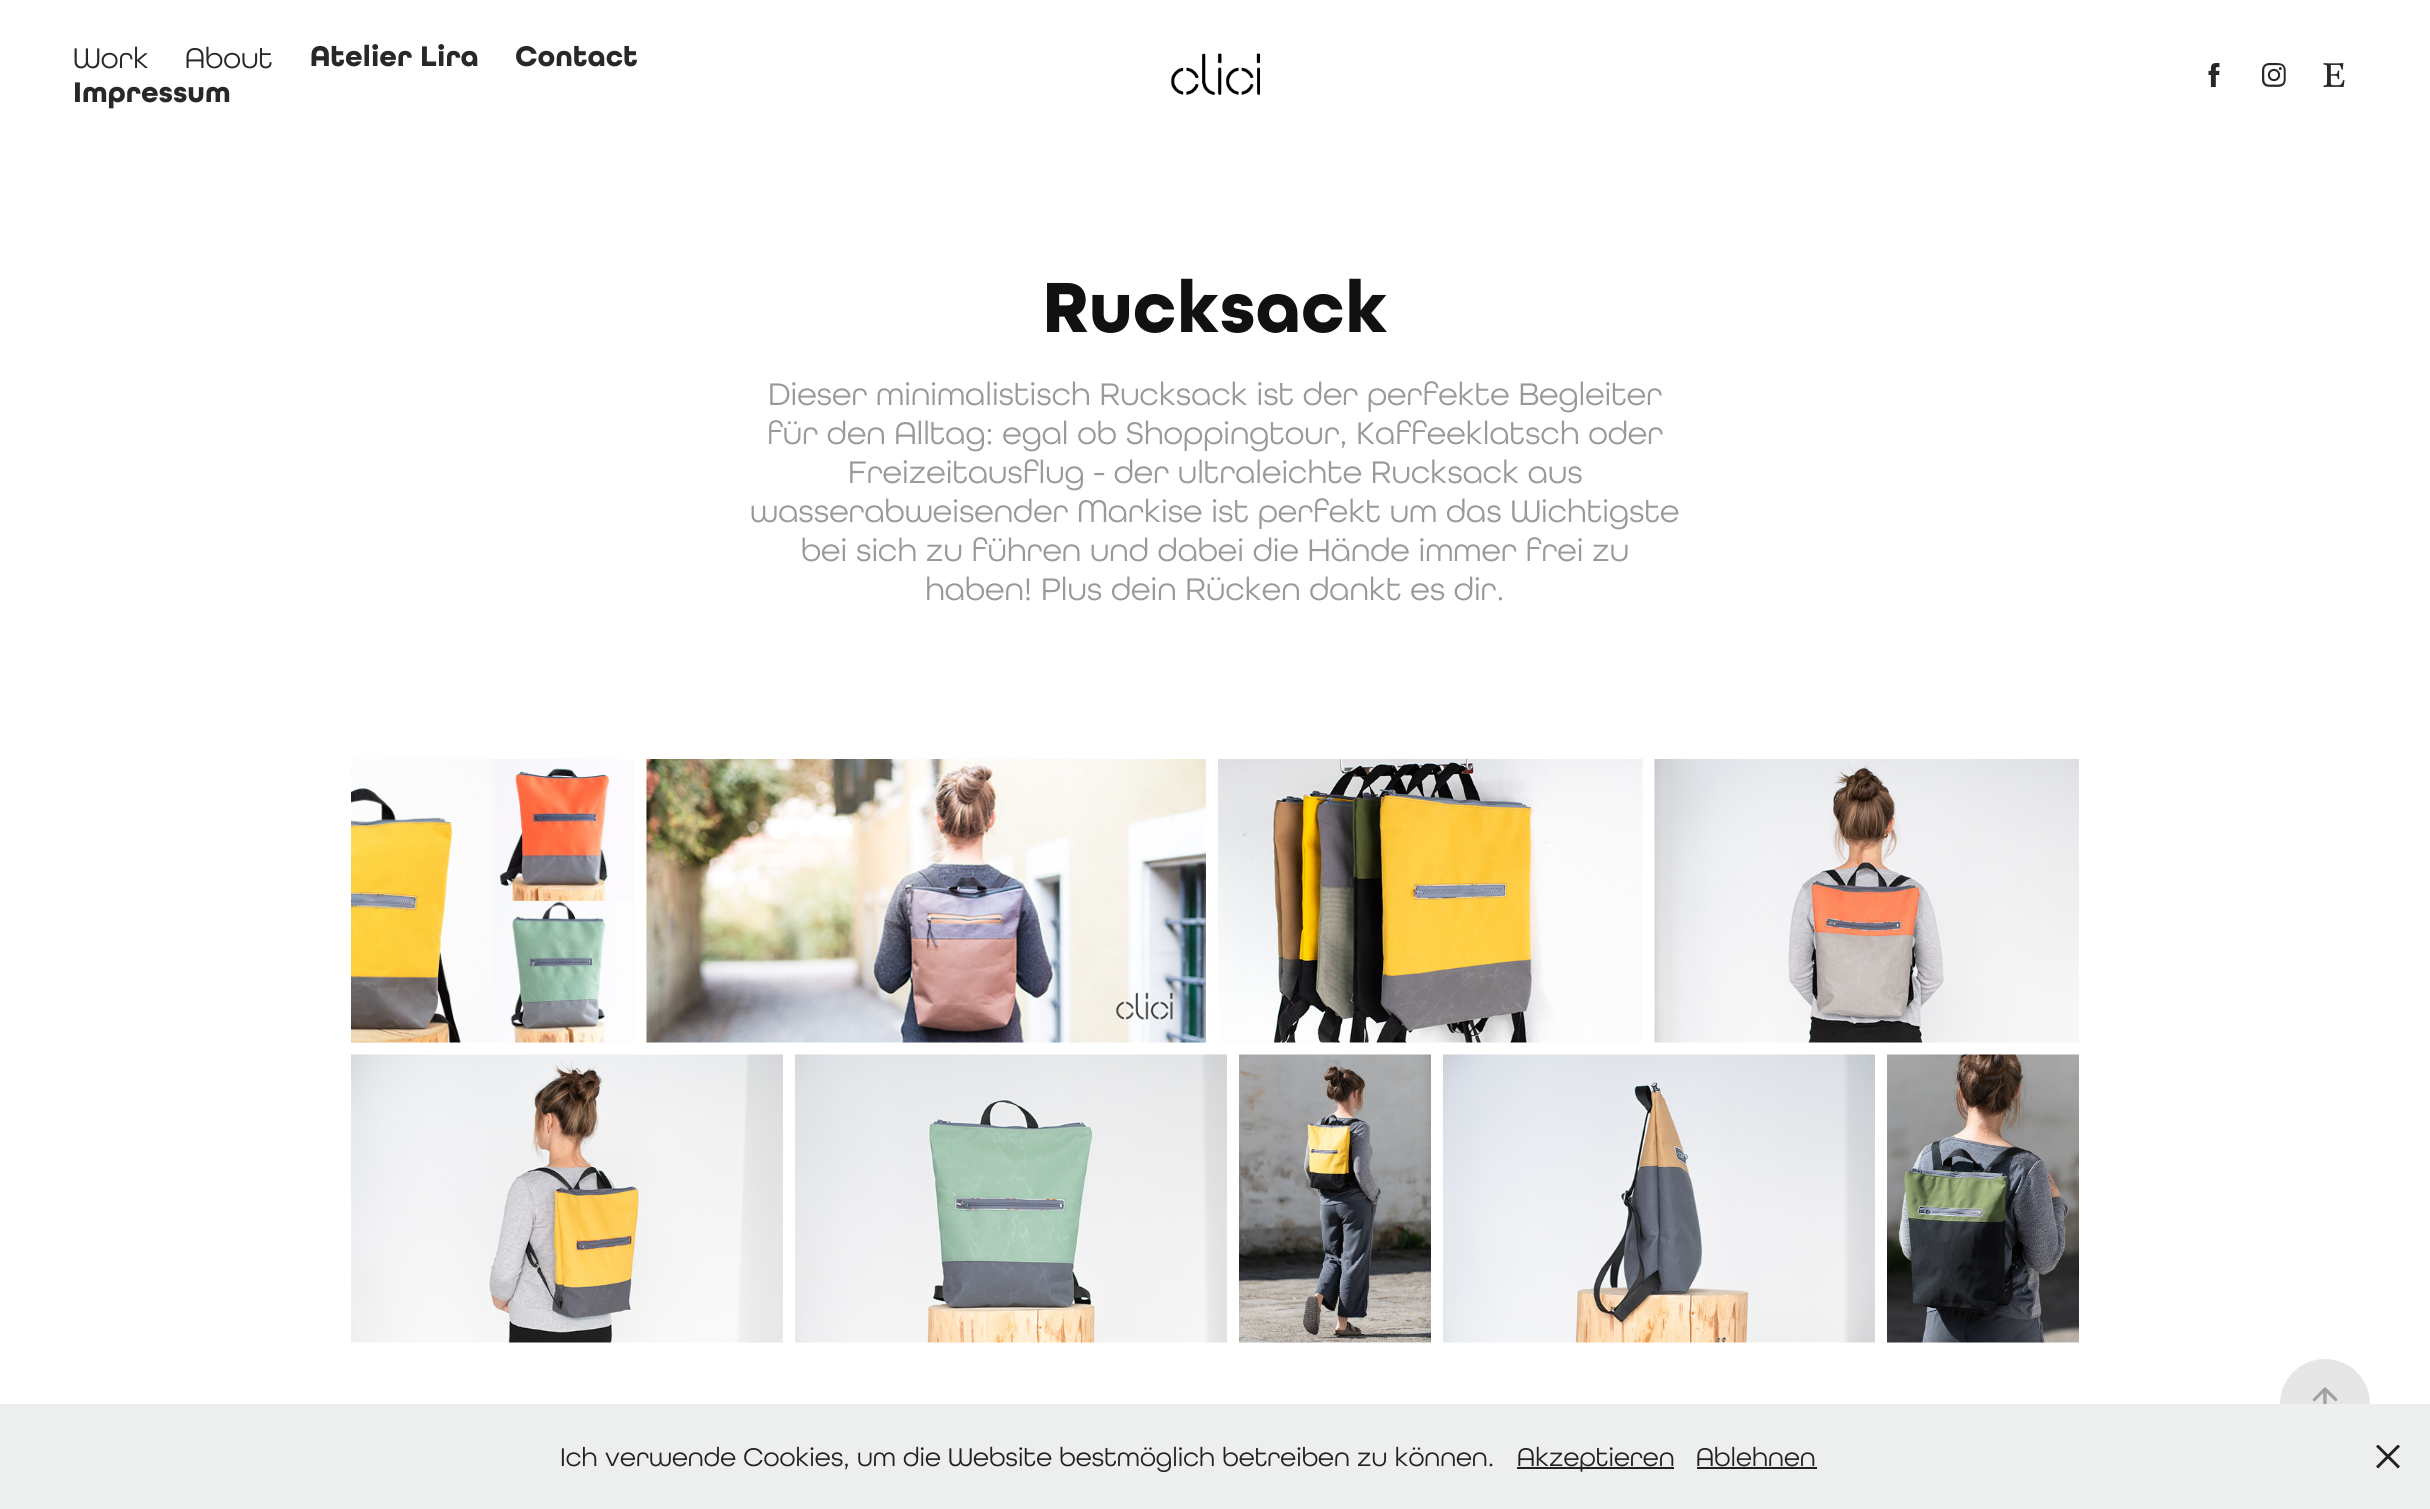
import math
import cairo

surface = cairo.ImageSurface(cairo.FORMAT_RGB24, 2430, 1509)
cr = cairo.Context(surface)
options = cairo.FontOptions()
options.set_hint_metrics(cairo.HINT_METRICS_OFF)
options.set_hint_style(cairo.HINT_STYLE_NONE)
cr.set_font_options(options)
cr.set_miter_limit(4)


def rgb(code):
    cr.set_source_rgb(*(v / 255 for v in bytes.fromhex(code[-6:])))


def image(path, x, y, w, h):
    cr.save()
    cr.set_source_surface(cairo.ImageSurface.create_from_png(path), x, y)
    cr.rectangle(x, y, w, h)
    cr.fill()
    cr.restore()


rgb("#ffffff")
cr.paint()
image("img/1.png", 1170, 53, 90, 42)
image("img/2.png", 2208, 63, 12, 24)
image("img/3.png", 2262, 63, 24, 24)
image("img/4.png", 2323, 63, 22, 24)
image("img/5.png", 351, 759, 283, 284)
image("img/6.png", 646, 759, 560, 284)
image("img/7.png", 1218, 759, 425, 284)
image("img/8.png", 1654, 759, 425, 284)
image("img/9.png", 351, 1054, 432, 289)
image("img/10.png", 795, 1054, 432, 289)
image("img/11.png", 1239, 1054, 192, 289)
image("img/12.png", 1443, 1054, 432, 289)
image("img/13.png", 1887, 1054, 192, 289)
rgb("#e6e6e6")
cr.arc(2325, 1404, 45, 0, 2 * math.pi)
cr.fill()
image("img/14.png", 2312, 1387, 26, 17)
for x, y, w, h, color in [
    (0, 1404, 2430, 105, "#edeeee"),
    (1517, 1467, 157, 2, "#212121"),
    (1697, 1467, 120, 2, "#212121"),
]:
    rgb(color)
    cr.rectangle(x, y, w, h)
    cr.fill()
image("img/15.png", 2376, 1445, 24, 24)
cr.select_font_face("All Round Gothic")
cr.set_font_size(30)
rgb("#282828")
cr.move_to(73, 68)
cr.show_text("Work")
cr.move_to(185, 68)
cr.show_text("About")
cr.select_font_face("All Round Gothic", cairo.FONT_SLANT_NORMAL, cairo.FONT_WEIGHT_BOLD)
for x, y, s in [
    (310, 66, "Atelier Lira"),
    (515, 66, "Contact"),
    (73, 102, "Impressum"),
]:
    cr.move_to(x, y)
    cr.show_text(s)
cr.set_font_size(75)
rgb("#111111")
cr.move_to(1042, 332)
cr.show_text("Rucksack")
cr.select_font_face("All Round Gothic")
cr.set_font_size(33)
rgb("#999999")
for x, y, s in [
    (768, 405, "Dieser minimalistisch Rucksack ist der perfekte Begleiter"),
    (767, 444, "für den Alltag: egal ob Shoppingtour, Kaffeeklatsch oder"),
    (848, 483, "Freizeitausflug - der ultraleichte Rucksack aus"),
    (750, 522, "wasserabweisender Markise ist perfekt um das Wichtigste"),
    (801, 561, "bei sich zu führen und dabei die Hände immer frei zu"),
    (925, 600, "haben! Plus dein Rücken dankt es dir."),
]:
    cr.move_to(x, y)
    cr.show_text(s)
cr.set_font_size(27)
rgb("#212121")
for x, y, s in [
    (560, 1466, "Ich verwende Cookies, um die Website bestmöglich betreiben zu können."),
    (1517, 1466, "Akzeptieren"),
    (1696, 1466, "Ablehnen"),
]:
    cr.move_to(x, y)
    cr.show_text(s)
surface.write_to_png("page.png")
